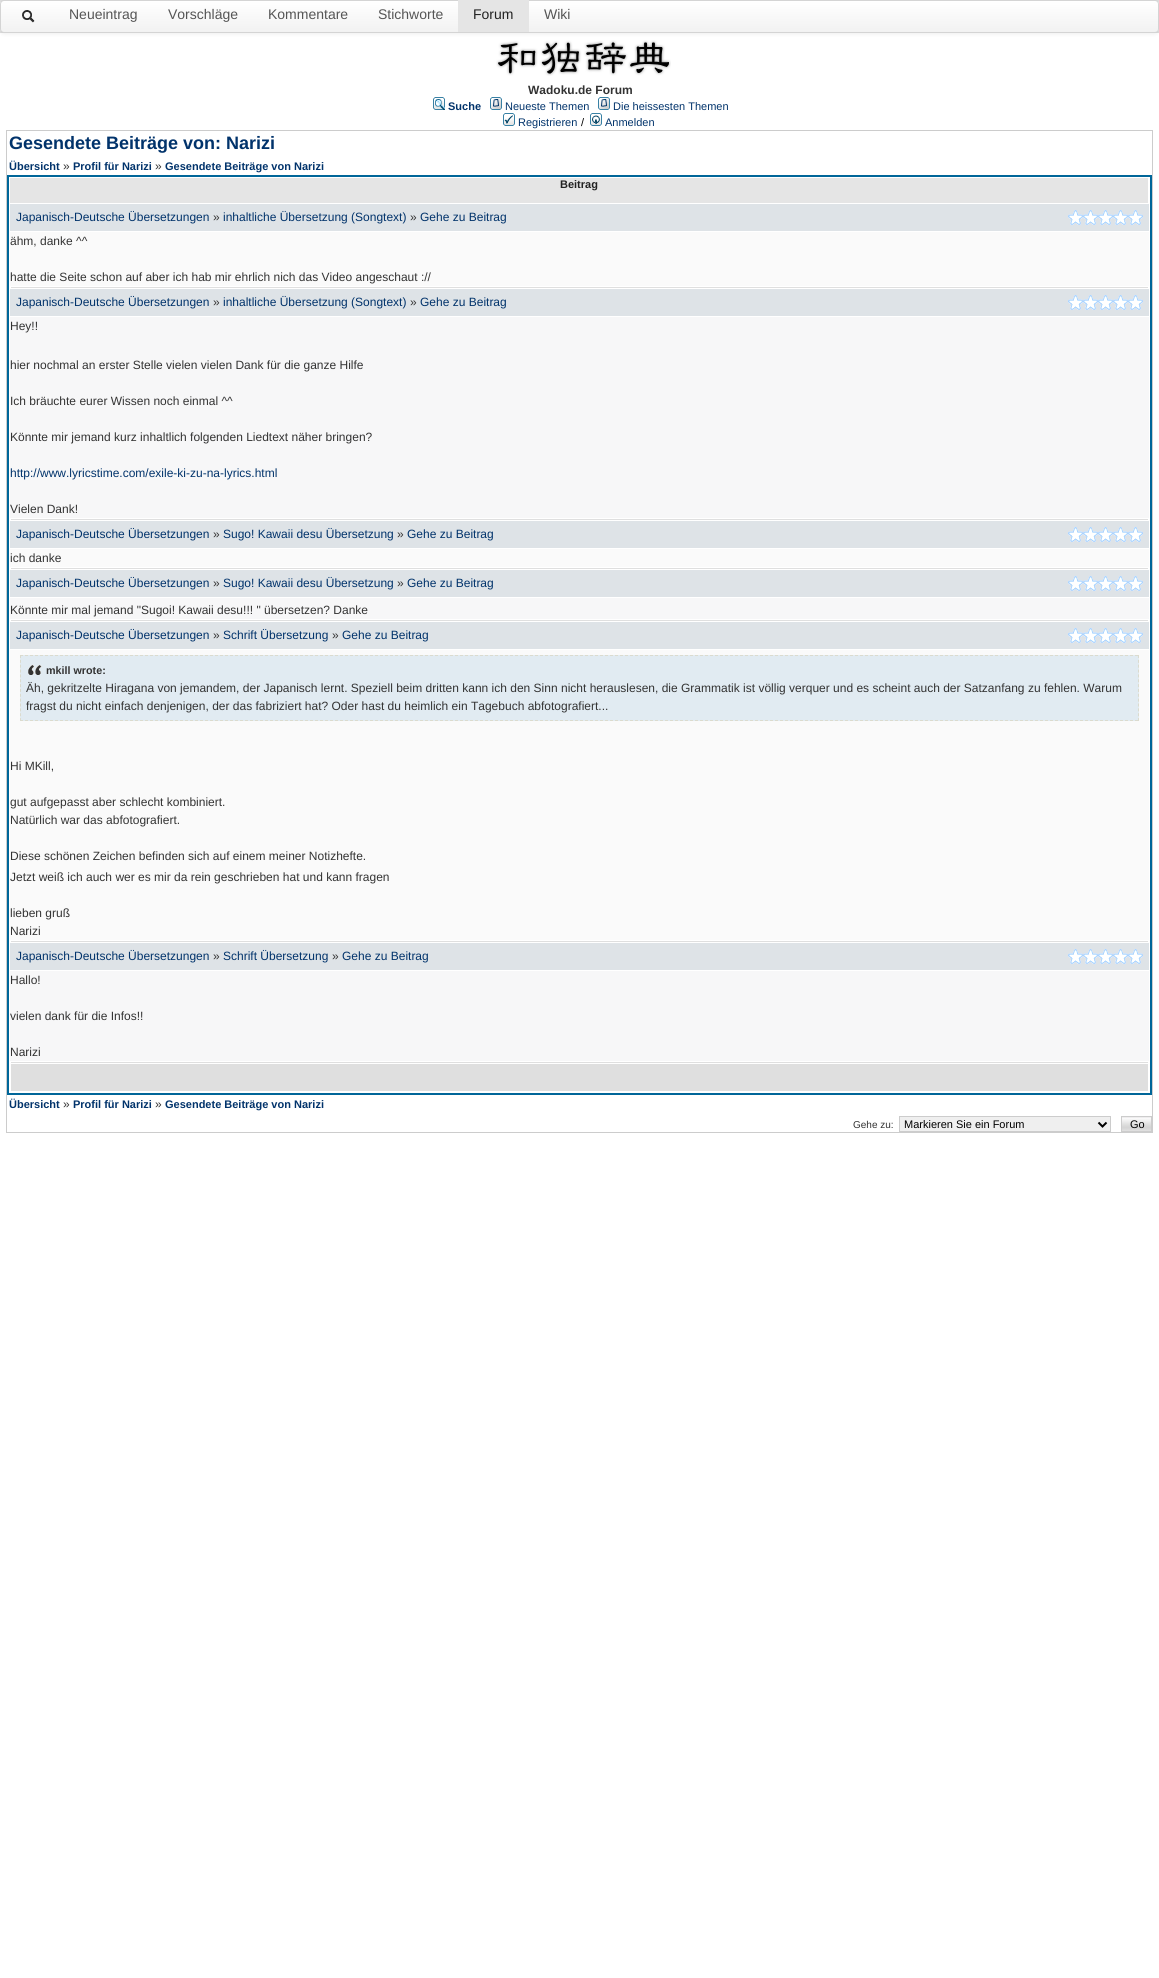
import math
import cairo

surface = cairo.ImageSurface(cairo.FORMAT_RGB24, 1159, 1978)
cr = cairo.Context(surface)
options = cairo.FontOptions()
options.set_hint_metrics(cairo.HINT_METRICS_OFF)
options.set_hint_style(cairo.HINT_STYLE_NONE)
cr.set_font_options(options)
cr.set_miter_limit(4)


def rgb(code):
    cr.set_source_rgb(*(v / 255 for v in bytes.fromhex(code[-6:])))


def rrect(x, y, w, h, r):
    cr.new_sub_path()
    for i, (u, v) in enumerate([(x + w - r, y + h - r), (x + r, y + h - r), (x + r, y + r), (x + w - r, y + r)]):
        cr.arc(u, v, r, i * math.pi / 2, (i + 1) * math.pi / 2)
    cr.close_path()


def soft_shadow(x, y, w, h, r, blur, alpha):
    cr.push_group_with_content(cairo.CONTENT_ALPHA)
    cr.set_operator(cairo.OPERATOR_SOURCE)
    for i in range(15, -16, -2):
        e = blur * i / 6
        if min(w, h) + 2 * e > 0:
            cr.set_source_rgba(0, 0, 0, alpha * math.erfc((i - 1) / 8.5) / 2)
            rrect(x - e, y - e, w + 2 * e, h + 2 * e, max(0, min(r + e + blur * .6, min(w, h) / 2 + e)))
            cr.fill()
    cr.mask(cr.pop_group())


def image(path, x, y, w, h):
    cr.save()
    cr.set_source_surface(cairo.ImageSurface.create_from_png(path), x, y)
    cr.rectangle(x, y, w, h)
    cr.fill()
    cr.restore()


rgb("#ffffff")
cr.paint()
rgb("#dddddd")
cr.rectangle(0, 0, 1159, 33)
cr.fill()
rgb("#000000")
soft_shadow(0, 1, 1159, 33, 4, 2, 0.07)
cr.save()
rrect(0, 0, 1159, 33, 4)
cr.clip()
gradient = cairo.LinearGradient(580, 1, 580, 32)
gradient.add_color_stop_rgba(0, 1, 1, 1, 1)
gradient.add_color_stop_rgba(1, 0.949, 0.949, 0.949, 1)
cr.set_source(gradient)
cr.rectangle(0, 1, 1159, 31)
cr.fill()
cr.restore()
rrect(0.5, 0.5, 1158, 32, 3.5)
rgb("#d4d4d4")
cr.set_line_width(1)
cr.stroke()
image("img/1.png", 22, 10, 13, 13)
rgb("#e5e5e5")
cr.rectangle(458, 0, 71, 32)
cr.fill()
image("img/2.png", 496, 40, 175, 36)
image("img/3.png", 433, 97, 12, 13)
image("img/4.png", 490, 97, 12, 13)
image("img/4.png", 598, 97, 12, 13)
image("img/5.png", 503, 113, 12, 13)
image("img/6.png", 590, 113, 12, 13)
cr.rectangle(6.5, 130.5, 1146, 1002)
rgb("#cccccc")
cr.stroke()
cr.rectangle(8, 176, 1143, 918)
rgb("#006699")
cr.set_line_width(2)
cr.stroke()
rgb("#e5e5e5")
cr.rectangle(10, 178, 1138, 25)
cr.fill()
rgb("#dee3e7")
cr.rectangle(10, 204, 1139, 27)
cr.fill()
image("img/7.png", 1068, 210, 15, 15)
image("img/7.png", 1083, 210, 15, 15)
image("img/7.png", 1098, 210, 15, 15)
image("img/7.png", 1113, 210, 15, 15)
image("img/7.png", 1128, 210, 15, 15)
for x, y, w, h, color in [
    (10, 232, 1139, 54, "#fafafa"),
    (10, 287, 1139, 1, "#dfdfdf"),
    (1148, 287, 1, 1, "#ffffff"),
    (10, 287, 1, 1, "#ffffff"),
    (10, 289, 1139, 27, "#dee3e7"),
]:
    rgb(color)
    cr.rectangle(x, y, w, h)
    cr.fill()
image("img/7.png", 1068, 295, 15, 15)
image("img/7.png", 1083, 295, 15, 15)
image("img/7.png", 1098, 295, 15, 15)
image("img/7.png", 1113, 295, 15, 15)
image("img/7.png", 1128, 295, 15, 15)
for x, y, w, h, color in [
    (10, 317, 1139, 201, "#f7f7f8"),
    (10, 519, 1139, 1, "#dfdfdf"),
    (1148, 519, 1, 1, "#ffffff"),
    (10, 519, 1, 1, "#ffffff"),
    (10, 521, 1139, 27, "#dee3e7"),
]:
    rgb(color)
    cr.rectangle(x, y, w, h)
    cr.fill()
image("img/7.png", 1068, 527, 15, 15)
image("img/7.png", 1083, 527, 15, 15)
image("img/7.png", 1098, 527, 15, 15)
image("img/7.png", 1113, 527, 15, 15)
image("img/7.png", 1128, 527, 15, 15)
for x, y, w, h, color in [
    (10, 549, 1139, 18, "#fafafa"),
    (10, 568, 1139, 1, "#dfdfdf"),
    (1148, 568, 1, 1, "#ffffff"),
    (10, 568, 1, 1, "#ffffff"),
    (10, 570, 1139, 27, "#dee3e7"),
]:
    rgb(color)
    cr.rectangle(x, y, w, h)
    cr.fill()
image("img/7.png", 1068, 576, 15, 15)
image("img/7.png", 1083, 576, 15, 15)
image("img/7.png", 1098, 576, 15, 15)
image("img/7.png", 1113, 576, 15, 15)
image("img/7.png", 1128, 576, 15, 15)
for x, y, w, h, color in [
    (10, 598, 1139, 21, "#f7f7f8"),
    (10, 620, 1139, 1, "#dfdfdf"),
    (1148, 620, 1, 1, "#ffffff"),
    (10, 620, 1, 1, "#ffffff"),
    (10, 622, 1139, 27, "#dee3e7"),
]:
    rgb(color)
    cr.rectangle(x, y, w, h)
    cr.fill()
image("img/7.png", 1068, 628, 15, 15)
image("img/7.png", 1083, 628, 15, 15)
image("img/7.png", 1098, 628, 15, 15)
image("img/7.png", 1113, 628, 15, 15)
image("img/7.png", 1128, 628, 15, 15)
rgb("#fafafa")
cr.rectangle(10, 650, 1139, 290)
cr.fill()
rgb("#e1ebf2")
cr.rectangle(20, 655, 1119, 66)
cr.fill()
image("img/8.png", 28, 665, 14, 10)
cr.new_path()
cr.move_to(20, 655.5)
cr.line_to(1139, 655.5)
rgb("#dbdbce")
cr.set_line_width(1)
cr.set_dash([3, 2])
cr.stroke()
cr.new_path()
cr.move_to(1138.5, 655)
cr.line_to(1138.5, 721)
cr.set_dash([3, 1.85])
cr.stroke()
cr.new_path()
cr.move_to(20, 720.5)
cr.line_to(1139, 720.5)
cr.set_dash([3, 2])
cr.stroke()
cr.new_path()
cr.move_to(20.5, 655)
cr.line_to(20.5, 721)
cr.set_dash([3, 1.85])
cr.stroke()
for x, y, w, h, color in [
    (10, 941, 1139, 1, "#dfdfdf"),
    (1148, 941, 1, 1, "#ffffff"),
    (10, 941, 1, 1, "#ffffff"),
    (10, 943, 1139, 27, "#dee3e7"),
]:
    rgb(color)
    cr.rectangle(x, y, w, h)
    cr.fill()
image("img/7.png", 1068, 949, 15, 15)
image("img/7.png", 1083, 949, 15, 15)
image("img/7.png", 1098, 949, 15, 15)
image("img/7.png", 1113, 949, 15, 15)
image("img/7.png", 1128, 949, 15, 15)
for x, y, w, h, color in [
    (10, 971, 1139, 90, "#f7f7f8"),
    (10, 1062, 1139, 1, "#dfdfdf"),
    (1148, 1062, 1, 1, "#ffffff"),
    (10, 1062, 1, 1, "#ffffff"),
    (11, 1064, 1137, 27, "#dfdfdf"),
]:
    rgb(color)
    cr.rectangle(x, y, w, h)
    cr.fill()
rgb("#efefef")
cr.rectangle(899.5, 1116.5, 211, 15)
cr.fill_preserve()
rgb("#cccccc")
cr.set_dash([])
cr.stroke()
cr.new_path()
cr.move_to(1098.5, 1122.5)
cr.line_to(1102.5, 1126.5)
cr.line_to(1106.5, 1122.5)
rgb("#000000")
cr.set_line_width(2)
cr.stroke()
image("img/9.png", 1122, 1117, 29, 14)
cr.rectangle(1121.5, 1116.5, 30, 15)
rgb("#cccccc")
cr.set_line_width(1)
cr.stroke()
cr.select_font_face("Liberation Sans")
cr.set_font_size(14)
rgb("#555555")
for x, y, s in [
    (69, 19, "Neueintrag"),
    (168, 19, "Vorschläge"),
    (268, 19, "Kommentare"),
    (378, 19, "Stichworte"),
]:
    cr.move_to(x, y)
    cr.show_text(s)
rgb("#222222")
cr.move_to(473, 19)
cr.show_text("Forum")
rgb("#555555")
cr.move_to(544, 19)
cr.show_text("Wiki")
cr.select_font_face("Liberation Sans", cairo.FONT_SLANT_NORMAL, cairo.FONT_WEIGHT_BOLD)
cr.set_font_size(12)
rgb("#333333")
cr.move_to(528, 94)
cr.show_text("Wadoku.de Forum")
cr.set_font_size(11)
rgb("#01336b")
cr.move_to(448, 110)
cr.show_text("Suche")
cr.select_font_face("Liberation Sans")
for x, y, s in [
    (505, 110, "Neueste Themen"),
    (613, 110, "Die heissesten Themen"),
    (518, 126, "Registrieren"),
]:
    cr.move_to(x, y)
    cr.show_text(s)
rgb("#000000")
cr.move_to(581, 126)
cr.show_text("/")
rgb("#01336b")
cr.move_to(605, 126)
cr.show_text("Anmelden")
cr.select_font_face("Liberation Sans", cairo.FONT_SLANT_NORMAL, cairo.FONT_WEIGHT_BOLD)
cr.set_font_size(18)
cr.move_to(9, 149)
cr.show_text("Gesendete Beiträge von: Narizi")
cr.set_font_size(11)
cr.move_to(9, 170)
cr.show_text("Übersicht")
cr.select_font_face("Liberation Sans")
cr.set_font_size(12)
rgb("#333333")
cr.move_to(63, 170)
cr.show_text("»")
cr.select_font_face("Liberation Sans", cairo.FONT_SLANT_NORMAL, cairo.FONT_WEIGHT_BOLD)
cr.set_font_size(11)
rgb("#01336b")
cr.move_to(73, 170)
cr.show_text("Profil für Narizi")
cr.select_font_face("Liberation Sans")
cr.set_font_size(12)
rgb("#333333")
cr.move_to(155, 170)
cr.show_text("»")
cr.select_font_face("Liberation Sans", cairo.FONT_SLANT_NORMAL, cairo.FONT_WEIGHT_BOLD)
cr.set_font_size(11)
rgb("#01336b")
cr.move_to(165, 170)
cr.show_text("Gesendete Beiträge von Narizi")
rgb("#222222")
cr.move_to(560, 188)
cr.show_text("Beitrag")
cr.select_font_face("Liberation Sans")
cr.set_font_size(12)
rgb("#01336b")
cr.move_to(16, 221)
cr.show_text("Japanisch-Deutsche Übersetzungen")
rgb("#333333")
cr.move_to(213, 221)
cr.show_text("»")
rgb("#01336b")
cr.move_to(223, 221)
cr.show_text("inhaltliche Übersetzung (Songtext)")
rgb("#333333")
cr.move_to(410, 221)
cr.show_text("»")
rgb("#01336b")
cr.move_to(420, 221)
cr.show_text("Gehe zu Beitrag")
rgb("#333333")
cr.move_to(10, 245)
cr.show_text("ähm, danke ^^")
cr.move_to(10, 281)
cr.show_text("hatte die Seite schon auf aber ich hab mir ehrlich nich das Video angeschaut ://")
rgb("#01336b")
cr.move_to(16, 306)
cr.show_text("Japanisch-Deutsche Übersetzungen")
rgb("#333333")
cr.move_to(213, 306)
cr.show_text("»")
rgb("#01336b")
cr.move_to(223, 306)
cr.show_text("inhaltliche Übersetzung (Songtext)")
rgb("#333333")
cr.move_to(410, 306)
cr.show_text("»")
rgb("#01336b")
cr.move_to(420, 306)
cr.show_text("Gehe zu Beitrag")
rgb("#333333")
for x, y, s in [
    (10, 330, "Hey!!"),
    (10, 369, "hier nochmal an erster Stelle vielen vielen Dank für die ganze Hilfe"),
    (10, 405, "Ich bräuchte eurer Wissen noch einmal ^^"),
    (10, 441, "Könnte mir jemand kurz inhaltlich folgenden Liedtext näher bringen?"),
]:
    cr.move_to(x, y)
    cr.show_text(s)
rgb("#01336b")
cr.move_to(10, 477)
cr.show_text("http://www.lyricstime.com/exile-ki-zu-na-lyrics.html")
rgb("#333333")
cr.move_to(10, 513)
cr.show_text("Vielen Dank!")
rgb("#01336b")
cr.move_to(16, 538)
cr.show_text("Japanisch-Deutsche Übersetzungen")
rgb("#333333")
cr.move_to(213, 538)
cr.show_text("»")
rgb("#01336b")
cr.move_to(223, 538)
cr.show_text("Sugo! Kawaii desu Übersetzung")
rgb("#333333")
cr.move_to(397, 538)
cr.show_text("»")
rgb("#01336b")
cr.move_to(407, 538)
cr.show_text("Gehe zu Beitrag")
rgb("#333333")
cr.move_to(10, 562)
cr.show_text("ich danke")
rgb("#01336b")
cr.move_to(16, 587)
cr.show_text("Japanisch-Deutsche Übersetzungen")
rgb("#333333")
cr.move_to(213, 587)
cr.show_text("»")
rgb("#01336b")
cr.move_to(223, 587)
cr.show_text("Sugo! Kawaii desu Übersetzung")
rgb("#333333")
cr.move_to(397, 587)
cr.show_text("»")
rgb("#01336b")
cr.move_to(407, 587)
cr.show_text("Gehe zu Beitrag")
rgb("#333333")
cr.move_to(10, 614)
cr.show_text("Könnte mir mal jemand \"Sugoi! Kawaii desu!!! \" übersetzen? Danke")
rgb("#01336b")
cr.move_to(16, 639)
cr.show_text("Japanisch-Deutsche Übersetzungen")
rgb("#333333")
cr.move_to(213, 639)
cr.show_text("»")
rgb("#01336b")
cr.move_to(223, 639)
cr.show_text("Schrift Übersetzung")
rgb("#333333")
cr.move_to(332, 639)
cr.show_text("»")
rgb("#01336b")
cr.move_to(342, 639)
cr.show_text("Gehe zu Beitrag")
cr.select_font_face("Liberation Sans", cairo.FONT_SLANT_NORMAL, cairo.FONT_WEIGHT_BOLD)
cr.set_font_size(10.75)
rgb("#333333")
cr.move_to(46, 674)
cr.show_text("mkill wrote:")
cr.select_font_face("Liberation Sans")
cr.set_font_size(12)
for x, y, s in [
    (26, 692, "Äh, gekritzelte Hiragana von jemandem, der Japanisch lernt. Speziell beim dritten kann ich den Sinn nicht herauslesen, die Grammatik ist völlig verquer und es scheint auch der Satzanfang zu fehlen. Warum"),
    (26, 710, "fragst du nicht einfach denjenigen, der das fabriziert hat? Oder hast du heimlich ein Tagebuch abfotografiert..."),
    (10, 770, "Hi MKill,"),
    (10, 806, "gut aufgepasst aber schlecht kombiniert."),
    (10, 824, "Natürlich war das abfotografiert."),
    (10, 860, "Diese schönen Zeichen befinden sich auf einem meiner Notizhefte."),
    (10, 881, "Jetzt weiß ich auch wer es mir da rein geschrieben hat und kann fragen"),
    (10, 917, "lieben gruß"),
    (10, 935, "Narizi"),
]:
    cr.move_to(x, y)
    cr.show_text(s)
rgb("#01336b")
cr.move_to(16, 960)
cr.show_text("Japanisch-Deutsche Übersetzungen")
rgb("#333333")
cr.move_to(213, 960)
cr.show_text("»")
rgb("#01336b")
cr.move_to(223, 960)
cr.show_text("Schrift Übersetzung")
rgb("#333333")
cr.move_to(332, 960)
cr.show_text("»")
rgb("#01336b")
cr.move_to(342, 960)
cr.show_text("Gehe zu Beitrag")
rgb("#333333")
for x, y, s in [
    (10, 984, "Hallo!"),
    (10, 1020, "vielen dank für die Infos!!"),
    (10, 1056, "Narizi"),
]:
    cr.move_to(x, y)
    cr.show_text(s)
cr.select_font_face("Liberation Sans", cairo.FONT_SLANT_NORMAL, cairo.FONT_WEIGHT_BOLD)
cr.set_font_size(11)
rgb("#01336b")
cr.move_to(9, 1108)
cr.show_text("Übersicht")
cr.select_font_face("Liberation Sans")
cr.set_font_size(12)
rgb("#333333")
cr.move_to(63, 1108)
cr.show_text("»")
cr.select_font_face("Liberation Sans", cairo.FONT_SLANT_NORMAL, cairo.FONT_WEIGHT_BOLD)
cr.set_font_size(11)
rgb("#01336b")
cr.move_to(73, 1108)
cr.show_text("Profil für Narizi")
cr.select_font_face("Liberation Sans")
cr.set_font_size(12)
rgb("#333333")
cr.move_to(155, 1108)
cr.show_text("»")
cr.select_font_face("Liberation Sans", cairo.FONT_SLANT_NORMAL, cairo.FONT_WEIGHT_BOLD)
cr.set_font_size(11)
rgb("#01336b")
cr.move_to(165, 1108)
cr.show_text("Gesendete Beiträge von Narizi")
cr.select_font_face("Liberation Sans")
cr.set_font_size(10)
rgb("#333333")
cr.move_to(853, 1128)
cr.show_text("Gehe zu:")
cr.set_font_size(11)
rgb("#000000")
cr.move_to(904, 1128)
cr.show_text("Markieren Sie ein Forum")
cr.move_to(1130, 1128)
cr.show_text("Go")
surface.write_to_png("page.png")
